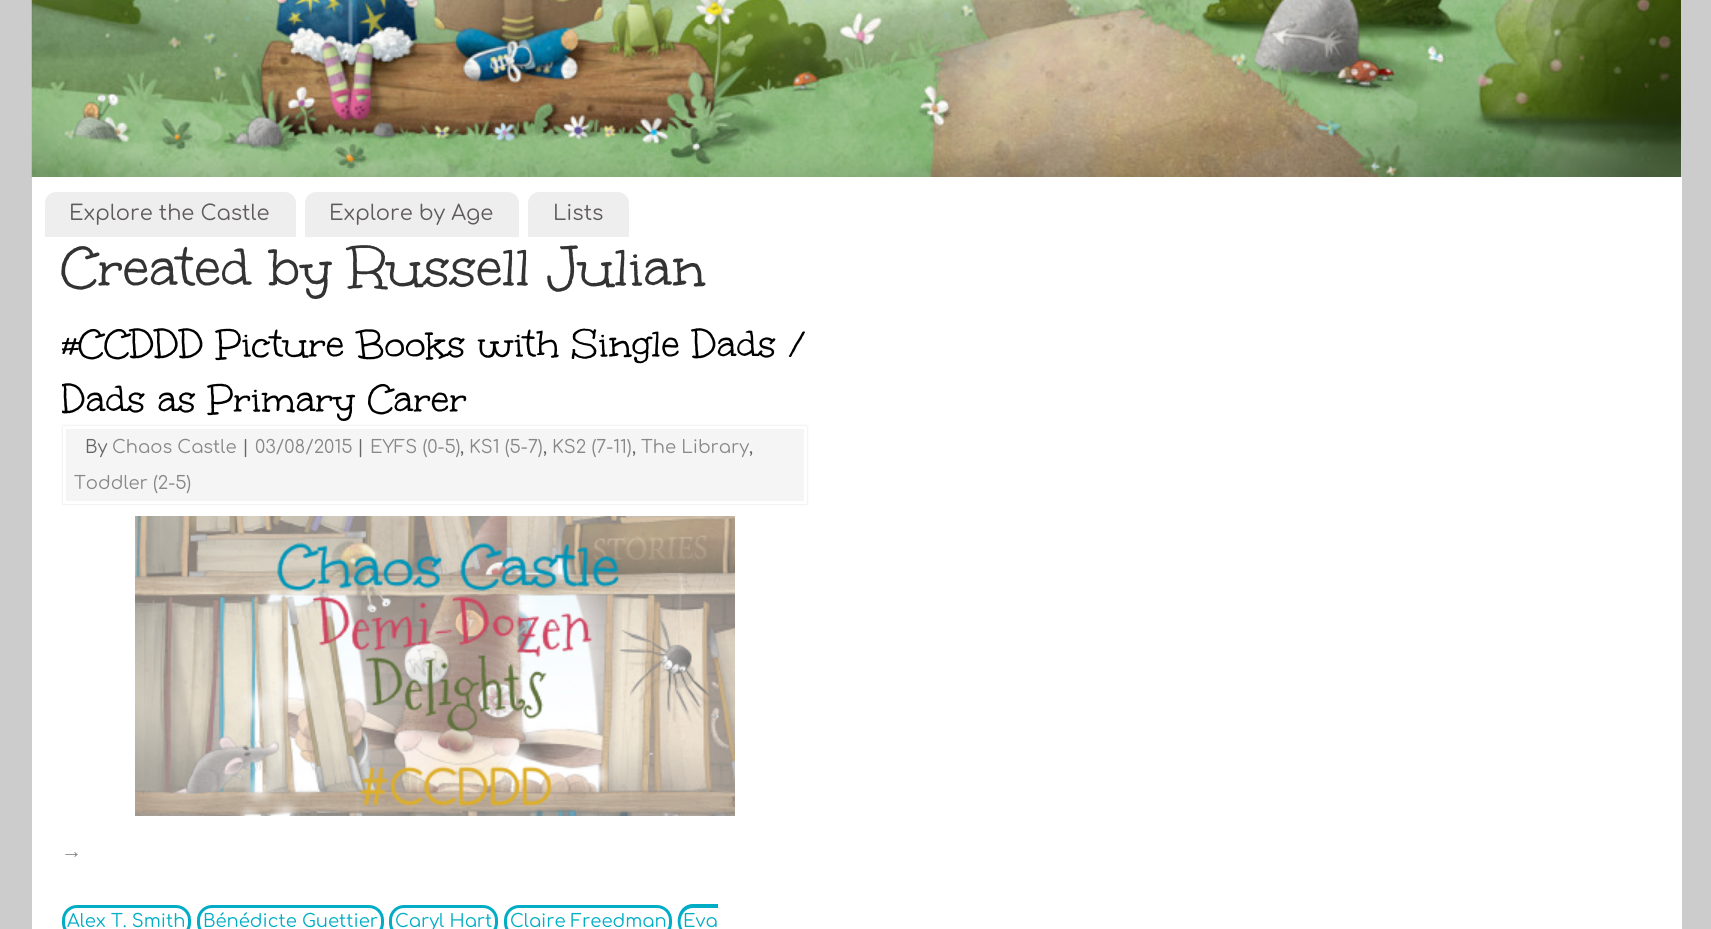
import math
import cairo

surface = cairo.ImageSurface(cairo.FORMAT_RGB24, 1711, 929)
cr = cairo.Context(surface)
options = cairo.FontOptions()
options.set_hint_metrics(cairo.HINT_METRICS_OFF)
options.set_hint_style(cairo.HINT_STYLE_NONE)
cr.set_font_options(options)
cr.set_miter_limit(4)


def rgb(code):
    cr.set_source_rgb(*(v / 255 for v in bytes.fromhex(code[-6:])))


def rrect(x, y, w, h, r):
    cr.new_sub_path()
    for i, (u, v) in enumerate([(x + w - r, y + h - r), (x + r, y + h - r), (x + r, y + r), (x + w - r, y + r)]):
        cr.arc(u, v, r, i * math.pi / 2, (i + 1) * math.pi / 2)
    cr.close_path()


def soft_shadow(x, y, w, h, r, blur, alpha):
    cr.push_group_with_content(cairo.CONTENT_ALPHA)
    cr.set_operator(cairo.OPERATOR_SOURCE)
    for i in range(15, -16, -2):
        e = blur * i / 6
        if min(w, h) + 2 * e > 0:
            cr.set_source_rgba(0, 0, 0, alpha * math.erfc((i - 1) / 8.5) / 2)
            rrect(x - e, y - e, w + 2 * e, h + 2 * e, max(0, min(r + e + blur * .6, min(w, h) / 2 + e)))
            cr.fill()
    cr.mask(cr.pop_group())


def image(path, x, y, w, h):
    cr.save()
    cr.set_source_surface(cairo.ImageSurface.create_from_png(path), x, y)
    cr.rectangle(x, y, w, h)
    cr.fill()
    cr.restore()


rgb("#cccccc")
cr.paint()
rgb("#ffffff")
cr.rectangle(32, 0, 1650, 929)
cr.fill()
image("img/1.png", 31, 0, 1651, 177)
rgb("#eeeeee")
cr.new_path()
cr.move_to(56, 192)
cr.line_to(285, 192)
cr.curve_to(291, 192, 296, 197, 296, 203)
cr.line_to(296, 237)
cr.line_to(45, 237)
cr.line_to(45, 203)
cr.curve_to(45, 197, 50, 192, 56, 192)
cr.close_path()
cr.fill()
cr.new_path()
cr.move_to(316, 192)
cr.line_to(508, 192)
cr.curve_to(514, 192, 519, 197, 519, 203)
cr.line_to(519, 237)
cr.line_to(305, 237)
cr.line_to(305, 203)
cr.curve_to(305, 197, 310, 192, 316, 192)
cr.close_path()
cr.fill()
cr.new_path()
cr.move_to(539, 192)
cr.line_to(618, 192)
cr.curve_to(624, 192, 629, 197, 629, 203)
cr.line_to(629, 237)
cr.line_to(528, 237)
cr.line_to(528, 203)
cr.curve_to(528, 197, 533, 192, 539, 192)
cr.close_path()
cr.fill()
rgb("#dddddd")
soft_shadow(63, 426, 744, 78, 0, 1, 1)
rgb("#f5f5f5")
cr.rectangle(64.5, 427.5, 741, 75)
cr.fill_preserve()
rgb("#ffffff")
cr.set_line_width(3)
cr.stroke()
image("img/2.png", 135, 516, 600, 300)
rrect(63.5, 906.5, 126, 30, 13.5)
rgb("#00adc5")
cr.stroke()
rrect(198.5, 906.5, 184, 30, 13.5)
cr.stroke()
rrect(390.5, 906.5, 106, 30, 13.5)
cr.stroke()
rrect(505.5, 906.5, 165, 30, 13.5)
cr.stroke()
cr.set_fill_rule(cairo.FILL_RULE_EVEN_ODD)
cr.new_path()
cr.move_to(693, 904)
cr.line_to(718, 904)
cr.line_to(718, 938)
cr.curve_to(711, 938, 693, 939, 687, 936)
cr.curve_to(672, 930, 676, 904, 693, 904)
cr.close_path()
cr.move_to(693, 908)
cr.line_to(718, 908)
cr.line_to(718, 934)
cr.line_to(702, 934)
cr.curve_to(697, 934, 692, 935, 688, 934)
cr.curve_to(676, 929, 679, 908, 693, 908)
cr.close_path()
cr.fill()
cr.select_font_face("Comfortaa")
cr.set_font_size(21)
rgb("#5f5b5b")
for x, y, s in [
    (69, 220, "Explore the Castle"),
    (329, 220, "Explore by Age"),
    (553, 220, "Lists"),
]:
    cr.move_to(x, y)
    cr.show_text(s)
cr.select_font_face("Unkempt")
cr.set_font_size(60)
rgb("#333333")
cr.move_to(61, 289)
cr.show_text("Created by Russell Julian")
cr.save()
cr.set_fill_rule(cairo.FILL_RULE_WINDING)
cr.rectangle(62, 317, 747, 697)
cr.clip()
cr.set_font_size(42)
rgb("#000000")
cr.move_to(61, 359)
cr.show_text("#CCDDD Picture Books with Single Dads /")
cr.move_to(61, 414)
cr.show_text("Dads as Primary Carer")
cr.restore()
cr.select_font_face("Comfortaa")
cr.set_font_size(18)
rgb("#666666")
cr.move_to(85, 453)
cr.show_text("By")
rgb("#888888")
cr.move_to(112, 453)
cr.show_text("Chaos Castle")
rgb("#666666")
cr.move_to(242, 453)
cr.show_text("|")
rgb("#888888")
cr.move_to(255, 453)
cr.show_text("03/08/2015")
rgb("#666666")
cr.move_to(357, 453)
cr.show_text("|")
rgb("#888888")
cr.move_to(370, 453)
cr.show_text("EYFS (0-5)")
rgb("#666666")
cr.move_to(460, 453)
cr.show_text(",")
rgb("#888888")
cr.move_to(469, 453)
cr.show_text("KS1 (5-7)")
rgb("#666666")
cr.move_to(543, 453)
cr.show_text(",")
rgb("#888888")
cr.move_to(552, 453)
cr.show_text("KS2 (7-11)")
rgb("#666666")
cr.move_to(632, 453)
cr.show_text(",")
rgb("#888888")
cr.move_to(641, 453)
cr.show_text("The Library")
rgb("#666666")
cr.move_to(749, 453)
cr.show_text(",")
rgb("#888888")
cr.move_to(74, 489)
cr.show_text("Toddler (2-5)")
cr.select_font_face("Liberation Serif")
cr.set_font_size(21)
cr.move_to(61, 858)
cr.show_text("→")
cr.select_font_face("Comfortaa")
cr.set_font_size(18)
rgb("#00adc5")
for x, y, s in [
    (67, 927, "Alex T. Smith"),
    (203, 927, "Bénédicte Guettier"),
    (395, 927, "Caryl Hart"),
    (510, 927, "Claire Freedman"),
    (683, 927, "Eva"),
]:
    cr.move_to(x, y)
    cr.show_text(s)
surface.write_to_png("page.png")
